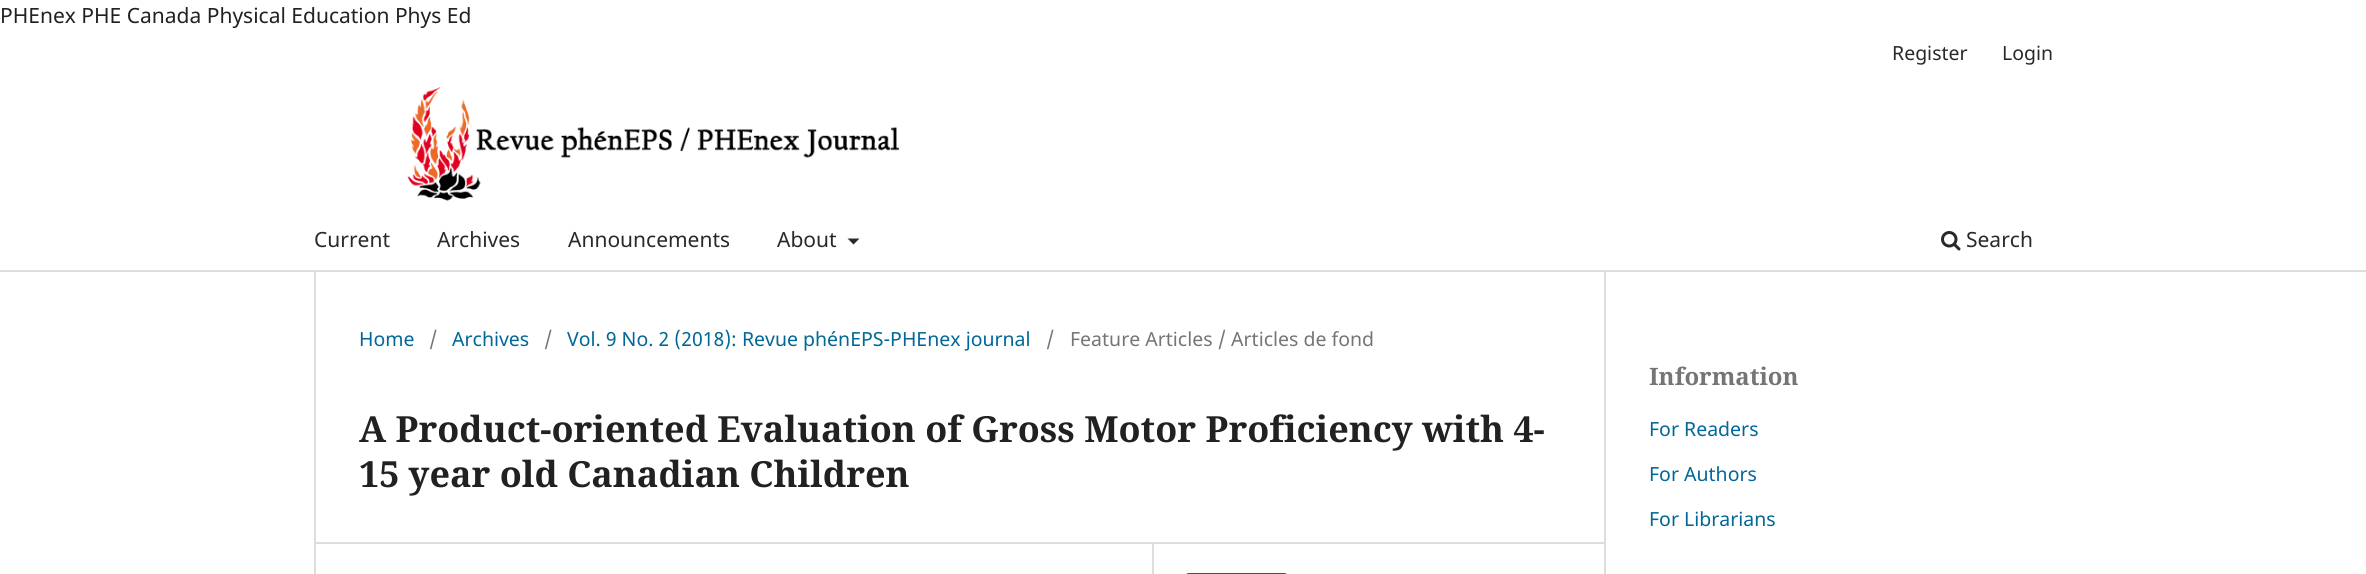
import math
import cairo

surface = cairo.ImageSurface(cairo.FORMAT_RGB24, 2366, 574)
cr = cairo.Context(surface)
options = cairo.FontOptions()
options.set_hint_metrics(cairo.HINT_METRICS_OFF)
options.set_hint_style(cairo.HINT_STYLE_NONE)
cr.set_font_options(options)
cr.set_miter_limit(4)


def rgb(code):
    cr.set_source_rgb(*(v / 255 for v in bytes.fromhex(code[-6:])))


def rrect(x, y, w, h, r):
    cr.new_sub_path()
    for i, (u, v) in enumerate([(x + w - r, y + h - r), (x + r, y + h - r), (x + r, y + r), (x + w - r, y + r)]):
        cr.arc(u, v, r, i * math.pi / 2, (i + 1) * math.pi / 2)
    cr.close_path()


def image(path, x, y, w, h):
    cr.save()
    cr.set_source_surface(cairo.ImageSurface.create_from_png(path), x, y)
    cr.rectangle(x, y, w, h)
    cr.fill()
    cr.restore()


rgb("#ffffff")
cr.paint()
rgb("#dddddd")
cr.rectangle(0, 270, 2366, 2)
cr.fill()
rgb("#292929")
cr.new_path()
cr.move_to(847.5, 238.5)
cr.line_to(859.5, 238.5)
cr.line_to(853.5, 244.5)
cr.close_path()
cr.fill()
image("img/1.png", 1941, 231, 20, 20)
image("img/2.png", 407, 87, 493, 114)
for x, y, w, h, color in [
    (314, 542, 1290, 2, "#dddddd"),
    (314, 272, 2, 302, "#dddddd"),
    (1152, 543, 2, 31, "#dddddd"),
]:
    rgb(color)
    cr.rectangle(x, y, w, h)
    cr.fill()
rrect(1185, 574, 103, 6, 4)
rgb("#006798")
cr.stroke()
rgb("#dddddd")
cr.rectangle(1604, 272, 2, 302)
cr.fill()
cr.select_font_face("Noto Sans")
cr.set_font_size(21)
rgb("#212121")
cr.move_to(0, 23)
cr.show_text("PHEnex PHE Canada Physical Education Phys Ed")
cr.set_font_size(19.5)
rgb("#292929")
cr.move_to(1892, 60)
cr.show_text("Register")
cr.move_to(2002, 60)
cr.show_text("Login")
cr.set_font_size(21)
for x, y, s in [
    (314, 247, "Current"),
    (437, 247, "Archives"),
    (568, 247, "Announcements"),
    (777, 247, "About"),
    (1966, 247, "Search"),
]:
    cr.move_to(x, y)
    cr.show_text(s)
cr.set_font_size(19.5)
rgb("#006798")
cr.move_to(359, 346)
cr.show_text("Home")
rgb("#757575")
cr.move_to(429, 346)
cr.show_text("/")
rgb("#006798")
cr.move_to(452, 346)
cr.show_text("Archives")
rgb("#757575")
cr.move_to(544, 346)
cr.show_text("/")
rgb("#006798")
cr.move_to(567, 346)
cr.show_text("Vol. 9 No. 2 (2018): Revue phénEPS-PHEnex journal")
rgb("#757575")
cr.move_to(1046, 346)
cr.show_text("/")
cr.move_to(1070, 346)
cr.show_text("Feature Articles / Articles de fond")
cr.select_font_face("Noto Serif", cairo.FONT_SLANT_NORMAL, cairo.FONT_WEIGHT_BOLD)
cr.set_font_size(36)
rgb("#212121")
cr.move_to(359, 442)
cr.show_text("A Product-oriented Evaluation of Gross Motor Proficiency with 4-")
cr.move_to(359, 487)
cr.show_text("15 year old Canadian Children")
cr.set_font_size(24)
rgb("#757575")
cr.move_to(1649, 385)
cr.show_text("Information")
cr.select_font_face("Noto Sans")
cr.set_font_size(19.5)
rgb("#006798")
for x, y, s in [
    (1649, 436, "For Readers"),
    (1649, 481, "For Authors"),
    (1649, 526, "For Librarians"),
]:
    cr.move_to(x, y)
    cr.show_text(s)
surface.write_to_png("page.png")
